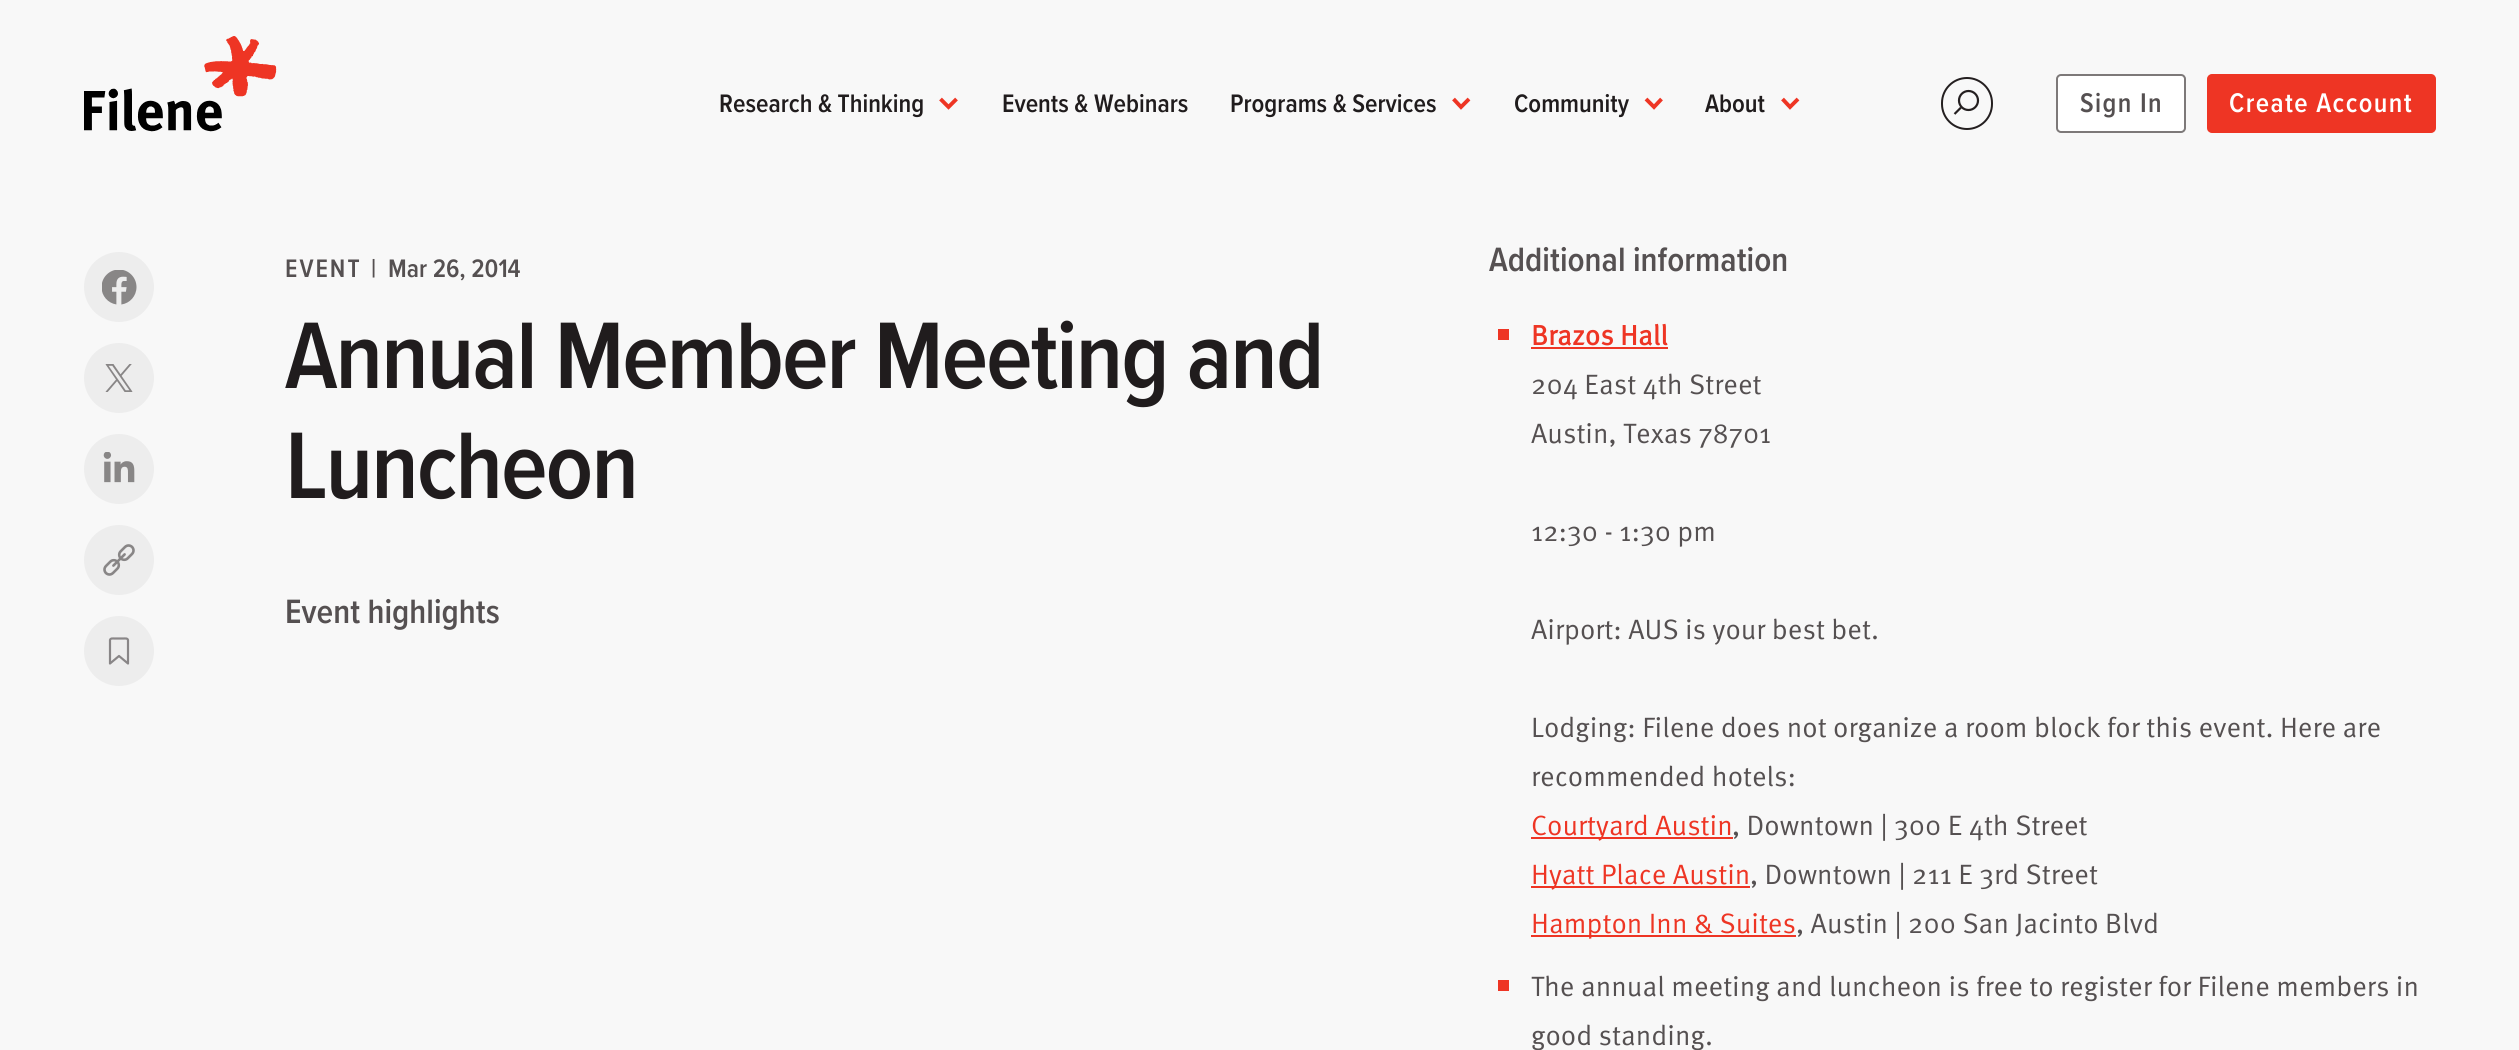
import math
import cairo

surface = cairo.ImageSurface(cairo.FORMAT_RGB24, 2519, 1050)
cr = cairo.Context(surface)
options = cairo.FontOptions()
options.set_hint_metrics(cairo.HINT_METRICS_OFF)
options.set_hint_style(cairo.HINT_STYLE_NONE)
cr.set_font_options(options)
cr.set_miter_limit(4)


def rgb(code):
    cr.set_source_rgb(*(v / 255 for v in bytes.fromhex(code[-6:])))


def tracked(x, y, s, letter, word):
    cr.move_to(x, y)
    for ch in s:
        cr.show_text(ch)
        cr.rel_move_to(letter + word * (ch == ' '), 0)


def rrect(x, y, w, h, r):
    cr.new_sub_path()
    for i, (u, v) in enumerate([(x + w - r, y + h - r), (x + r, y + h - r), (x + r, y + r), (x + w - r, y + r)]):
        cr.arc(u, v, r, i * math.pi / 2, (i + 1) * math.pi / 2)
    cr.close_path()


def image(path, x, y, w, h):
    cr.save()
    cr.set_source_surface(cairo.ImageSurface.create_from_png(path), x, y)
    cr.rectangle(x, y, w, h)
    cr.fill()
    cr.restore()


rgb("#f8f8f8")
cr.paint()
image("img/1.png", 84, 36, 193, 96)
cr.new_path()
cr.move_to(956.5, 99)
cr.line_to(948.5, 107)
cr.line_to(940.5, 99)
rgb("#ee3524")
cr.set_line_width(3.9)
cr.stroke()
cr.new_path()
cr.move_to(1469, 99)
cr.line_to(1461, 107)
cr.line_to(1453.5, 99)
cr.stroke()
cr.new_path()
cr.move_to(1661.5, 99)
cr.line_to(1654, 107)
cr.line_to(1646, 99)
cr.stroke()
cr.new_path()
cr.move_to(1798, 99)
cr.line_to(1790, 107)
cr.line_to(1782.5, 99)
cr.stroke()
rrect(1942, 78, 50, 51, 25)
rgb("#241f20")
cr.set_line_width(2)
cr.stroke()
cr.arc(1968.5, 100.5, 9.5, 0, 2 * math.pi)
cr.set_line_width(2.2)
cr.stroke()
cr.new_path()
cr.move_to(1954.5, 114)
cr.line_to(1961, 107.5)
cr.stroke()
rgb("#ffffff")
rrect(2057, 75, 128, 57, 4)
cr.fill_preserve()
rgb("#7d7979")
cr.set_line_width(2)
cr.stroke()
rgb("#ee3524")
rrect(2208, 75, 227, 57, 4)
cr.fill_preserve()
cr.stroke()
rgb("#ededed")
cr.arc(119, 287, 35, 0, 2 * math.pi)
cr.fill()
image("img/2.png", 102, 270, 35, 35)
cr.arc(119, 378, 35, 0, 2 * math.pi)
cr.fill()
image("img/3.png", 105, 364, 28, 28)
cr.arc(119, 469, 35, 0, 2 * math.pi)
cr.fill()
image("img/4.png", 103, 452, 32, 31)
cr.arc(119, 560, 35, 0, 2 * math.pi)
cr.fill()
image("img/5.png", 103, 544, 32, 32)
cr.arc(119, 651, 35, 0, 2 * math.pi)
cr.fill()
cr.new_path()
cr.move_to(128, 663.5)
cr.line_to(119, 656)
cr.line_to(110, 663.5)
cr.line_to(110, 640)
cr.curve_to(110.5, 638, 113, 638.5, 114.5, 638.5)
cr.line_to(123.5, 638.5)
cr.curve_to(125, 638.5, 127.5, 638, 128, 640)
cr.close_path()
rgb("#898687")
cr.set_line_width(2.2)
cr.set_line_cap(cairo.LINE_CAP_ROUND)
cr.set_line_join(cairo.LINE_JOIN_ROUND)
cr.stroke()
for x, y, w, h, color in [
    (1498, 329, 11, 11, "#ee3524"),
    (1531, 347, 137, 2, "#ee3524"),
    (1531, 837, 202, 2, "#ee3524"),
    (1531, 886, 219, 2, "#ee3524"),
    (1531, 935, 265, 2, "#ee3524"),
    (1498, 980, 11, 11, "#ee3524"),
]:
    rgb(color)
    cr.rectangle(x, y, w, h)
    cr.fill()
cr.select_font_face("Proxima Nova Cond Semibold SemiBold")
cr.set_font_size(26.25)
rgb("#201c1d")
for x, y, s in [
    (719, 112, "Research & Thinking"),
    (1002, 112, "Events & Webinars"),
    (1230, 112, "Programs & Services"),
    (1514, 112, "Community"),
    (1705, 112, "About"),
]:
    cr.move_to(x, y)
    cr.show_text(s)
cr.set_font_size(28)
rgb("#555051")
tracked(2080, 112, "Sign In", 1.4, 0)
rgb("#ffffff")
tracked(2229, 112, "Create Account", 1.4, 0)
cr.set_font_size(26.25)
rgb("#555051")
tracked(285, 277, "EVENT", 2, 0)
tracked(371, 277, "|", 2, 0)
cr.move_to(388, 277)
cr.show_text("Mar 26, 2014")
cr.set_font_size(98)
rgb("#201c1d")
tracked(285, 388, "Annual Member Meeting and", -1.95, 0)
tracked(285, 498, "Luncheon", -1.95, 0)
cr.set_font_size(35)
rgb("#555051")
cr.move_to(285, 623)
cr.show_text("Event highlights")
cr.move_to(1489, 271)
cr.show_text("Additional information")
cr.select_font_face("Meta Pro", cairo.FONT_SLANT_NORMAL, cairo.FONT_WEIGHT_BOLD)
cr.set_font_size(28)
rgb("#ee3524")
cr.move_to(1531, 345)
cr.show_text("Brazos Hall")
cr.select_font_face("Meta Pro")
rgb("#555051")
for x, y, s in [
    (1531, 394, "204 East 4th Street"),
    (1531, 443, "Austin, Texas 78701"),
    (1531, 541, "12:30 - 1:30 pm"),
    (1531, 639, "Airport: AUS is your best bet."),
    (1531, 737, "Lodging: Filene does not organize a room block for this event. Here are"),
    (1531, 786, "recommended hotels:"),
]:
    cr.move_to(x, y)
    cr.show_text(s)
rgb("#ee3524")
cr.move_to(1531, 835)
cr.show_text("Courtyard Austin")
rgb("#555051")
cr.move_to(1732, 835)
cr.show_text(", Downtown | 300 E 4th Street")
rgb("#ee3524")
cr.move_to(1531, 884)
cr.show_text("Hyatt Place Austin")
rgb("#555051")
cr.move_to(1750, 884)
cr.show_text(", Downtown | 211 E 3rd Street")
rgb("#ee3524")
cr.move_to(1531, 933)
cr.show_text("Hampton Inn & Suites")
rgb("#555051")
for x, y, s in [
    (1796, 933, ", Austin | 200 San Jacinto Blvd"),
    (1531, 996, "The annual meeting and luncheon is free to register for Filene members in"),
    (1531, 1045, "good standing."),
]:
    cr.move_to(x, y)
    cr.show_text(s)
surface.write_to_png("page.png")
